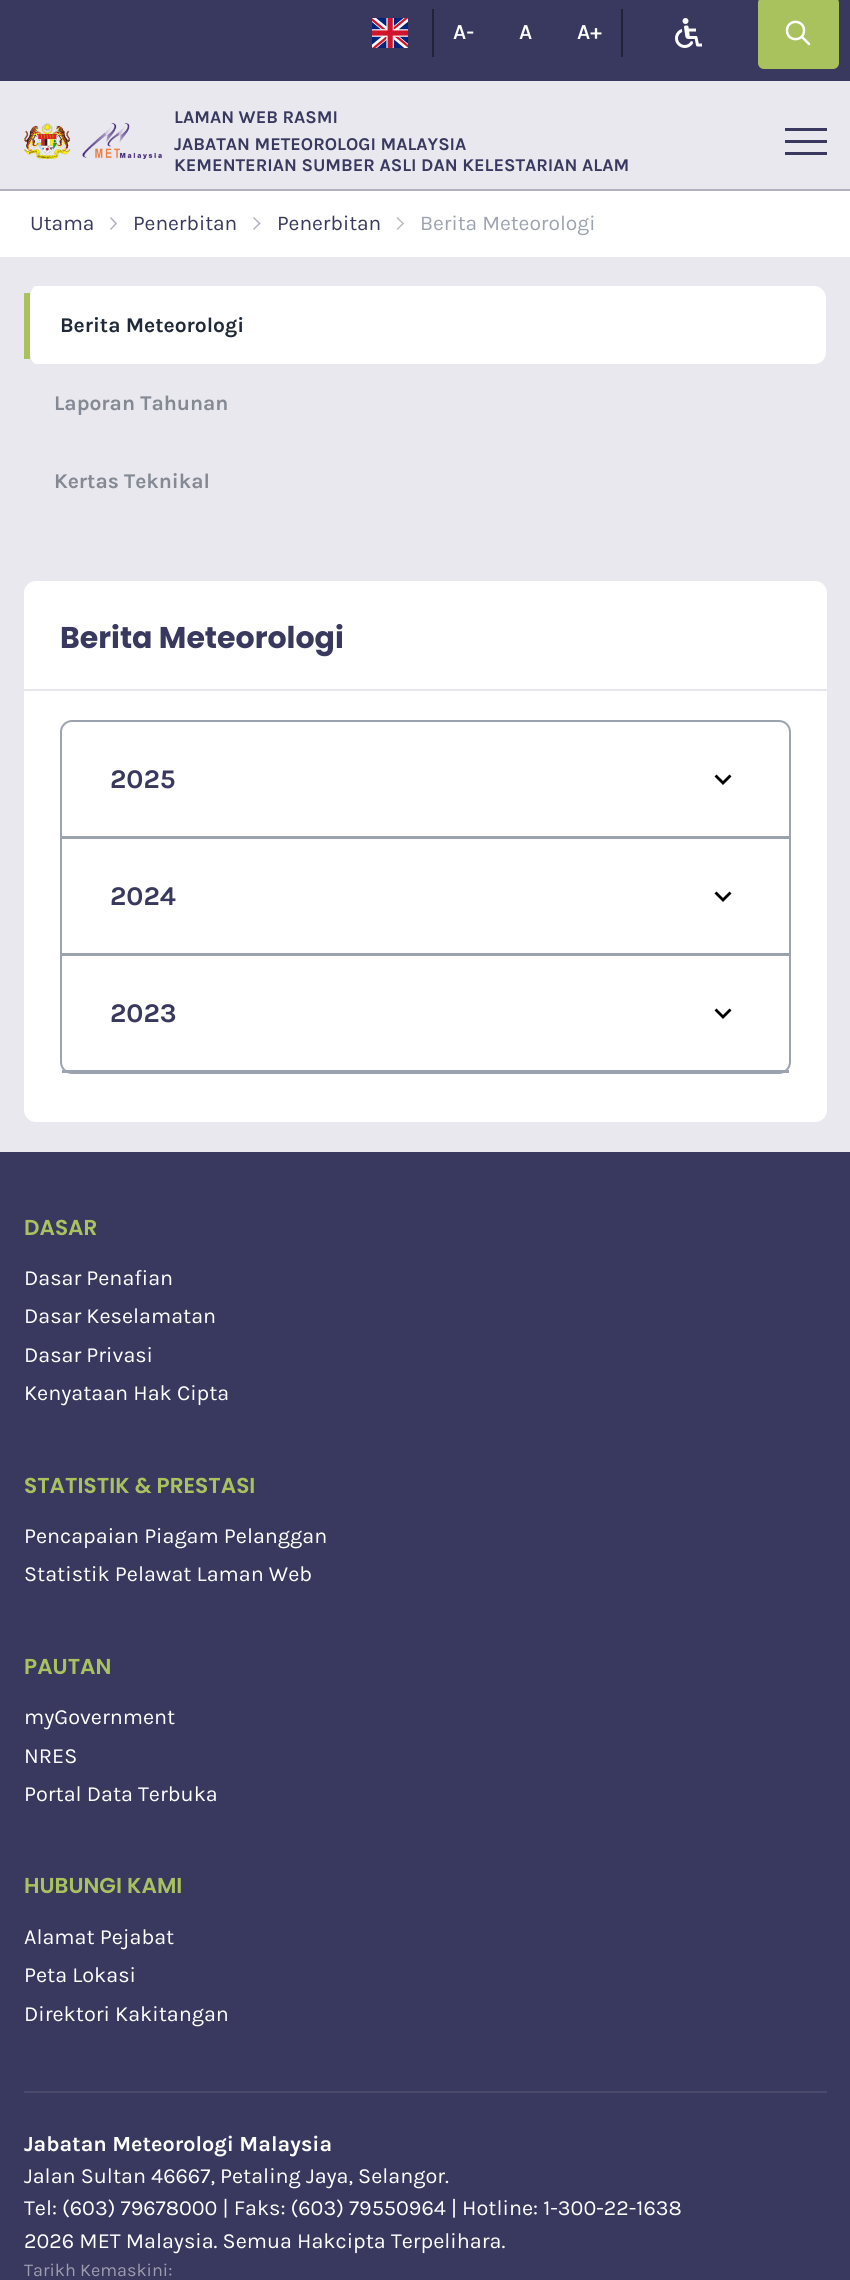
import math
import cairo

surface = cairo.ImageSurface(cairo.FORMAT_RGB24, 850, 2280)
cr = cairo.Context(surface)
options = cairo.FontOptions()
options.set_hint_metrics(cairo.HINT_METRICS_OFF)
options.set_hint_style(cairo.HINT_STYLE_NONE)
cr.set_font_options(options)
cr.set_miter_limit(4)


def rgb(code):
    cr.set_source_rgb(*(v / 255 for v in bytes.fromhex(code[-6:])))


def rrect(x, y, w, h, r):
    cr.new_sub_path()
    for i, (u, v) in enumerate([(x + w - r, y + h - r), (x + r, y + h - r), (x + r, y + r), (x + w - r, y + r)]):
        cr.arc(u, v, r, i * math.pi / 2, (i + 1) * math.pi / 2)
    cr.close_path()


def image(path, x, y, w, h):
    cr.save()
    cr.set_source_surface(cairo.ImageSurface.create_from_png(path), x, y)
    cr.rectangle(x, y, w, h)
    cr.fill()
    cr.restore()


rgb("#e8e8ee")
cr.paint()
rgb("#b0b0bf")
cr.rectangle(0, 189, 850, 2)
cr.fill()
rgb("#39395f")
cr.rectangle(0, 0, 850, 81)
cr.fill()
image("img/1.png", 372, 18, 36, 30)
rgb("#222239")
cr.rectangle(621, 9, 2, 48)
cr.fill()
cr.rectangle(432, 9, 2, 48)
cr.fill()
image("img/2.png", 675, 18, 27, 30)
rgb("#a9c25d")
rrect(759, -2, 79, 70, 5)
cr.fill_preserve()
cr.stroke()
cr.new_path()
cr.move_to(809, 44)
cr.line_to(802, 37)
cr.move_to(804, 30.5)
cr.curve_to(804, 42, 787, 42, 787, 30.5)
cr.curve_to(787, 19, 804, 19, 804, 30.5)
cr.close_path()
rgb("#ffffff")
cr.set_line_width(2.5)
cr.set_line_cap(cairo.LINE_CAP_ROUND)
cr.set_line_join(cairo.LINE_JOIN_ROUND)
cr.stroke()
image("img/3.png", 24, 123, 47, 36)
image("img/4.png", 82, 123, 80, 36)
for x, y, w, h, color in [
    (785, 140, 42, 3, "#39395f"),
    (785, 128, 42, 3, "#39395f"),
    (785, 152, 42, 3, "#39395f"),
    (0, 191, 850, 66, "#ffffff"),
]:
    rgb(color)
    cr.rectangle(x, y, w, h)
    cr.fill()
rgb("#b0b0bf")
cr.new_path()
cr.move_to(111, 217)
cr.line_to(117, 223.5)
cr.line_to(116, 224.5)
cr.line_to(110, 218)
cr.close_path()
cr.fill()
cr.new_path()
cr.move_to(116, 222.5)
cr.line_to(117, 223.5)
cr.line_to(111, 230)
cr.line_to(110, 229)
cr.close_path()
cr.fill()
cr.new_path()
cr.move_to(254, 217)
cr.line_to(260.5, 223.5)
cr.line_to(259.5, 224.5)
cr.line_to(253, 218)
cr.close_path()
cr.fill()
cr.new_path()
cr.move_to(259.5, 222.5)
cr.line_to(260.5, 223.5)
cr.line_to(254, 230)
cr.line_to(253, 229)
cr.close_path()
cr.fill()
rgb("#b7bbc1")
cr.new_path()
cr.move_to(397.5, 217)
cr.line_to(404, 223.5)
cr.line_to(403, 224.5)
cr.line_to(396.5, 218)
cr.close_path()
cr.fill()
cr.new_path()
cr.move_to(403, 222.5)
cr.line_to(404, 223.5)
cr.line_to(397.5, 230)
cr.line_to(396.5, 229)
cr.close_path()
cr.fill()
rgb("#ffffff")
cr.new_path()
cr.move_to(36, 286)
cr.line_to(814, 286)
cr.curve_to(821, 286, 826, 292, 826, 298)
cr.line_to(826, 352)
cr.curve_to(826, 359, 821, 364, 814, 364)
cr.line_to(36, 364)
cr.curve_to(33, 364, 30, 359, 30, 352)
cr.line_to(30, 298)
cr.curve_to(30, 292, 33, 286, 36, 286)
cr.close_path()
cr.fill()
rgb("#a9c25d")
cr.rectangle(24, 293, 6, 66)
cr.fill()
rgb("#ffffff")
rrect(24, 581, 803, 541, 12)
cr.fill()
rgb("#e5e7eb")
cr.rectangle(24, 689, 803, 2)
cr.fill()
rrect(61, 721, 729, 352, 11)
rgb("#9ca3af")
cr.set_line_width(2)
cr.set_line_cap(cairo.LINE_CAP_BUTT)
cr.set_line_join(cairo.LINE_JOIN_MITER)
cr.stroke()
cr.rectangle(62, 836, 727, 3)
cr.fill()
rgb("#000000")
cr.new_path()
cr.move_to(729.5, 774.5)
cr.line_to(723, 781)
cr.line_to(716.5, 774.5)
cr.line_to(714.5, 776.5)
cr.line_to(723, 785)
cr.line_to(731.5, 776.5)
cr.close_path()
cr.fill()
rgb("#9ca3af")
cr.rectangle(62, 953, 727, 3)
cr.fill()
rgb("#000000")
cr.new_path()
cr.move_to(729.5, 891.5)
cr.line_to(723, 898)
cr.line_to(716.5, 891.5)
cr.line_to(714.5, 893.5)
cr.line_to(723, 902)
cr.line_to(731.5, 893.5)
cr.close_path()
cr.fill()
rgb("#9ca3af")
cr.rectangle(62, 1070, 727, 3)
cr.fill()
rgb("#000000")
cr.new_path()
cr.move_to(729.5, 1008.5)
cr.line_to(723, 1015)
cr.line_to(716.5, 1008.5)
cr.line_to(714.5, 1010.5)
cr.line_to(723, 1019)
cr.line_to(731.5, 1010.5)
cr.close_path()
cr.fill()
rgb("#39395f")
cr.rectangle(0, 1152, 850, 1128)
cr.fill()
rgb("#4a4a6d")
cr.rectangle(24, 2091, 803, 2)
cr.fill()
cr.select_font_face("Karla SemiBold")
cr.set_font_size(21.6)
rgb("#ffffff")
for x, y, s in [
    (453, 39, "A-"),
    (519, 39, "A"),
    (577, 39, "A+"),
]:
    cr.move_to(x, y)
    cr.show_text(s)
cr.select_font_face("Karla", cairo.FONT_SLANT_NORMAL, cairo.FONT_WEIGHT_BOLD)
cr.set_font_size(18)
rgb("#39395f")
for x, y, s in [
    (174, 123, "LAMAN WEB RASMI"),
    (174, 150, "JABATAN METEOROLOGI MALAYSIA"),
    (174, 171, "KEMENTERIAN SUMBER ASLI DAN KELESTARIAN ALAM"),
]:
    cr.move_to(x, y)
    cr.show_text(s)
cr.select_font_face("Karla")
cr.set_font_size(21)
for x, y, s in [
    (30, 230, "Utama"),
    (133, 230, "Penerbitan"),
    (277, 230, "Penerbitan"),
]:
    cr.move_to(x, y)
    cr.show_text(s)
rgb("#9ca3af")
cr.move_to(420, 230)
cr.show_text("Berita Meteorologi")
cr.select_font_face("Karla", cairo.FONT_SLANT_NORMAL, cairo.FONT_WEIGHT_BOLD)
rgb("#1f2937")
cr.move_to(60, 332)
cr.show_text("Berita Meteorologi")
rgb("#848993")
cr.move_to(54, 410)
cr.show_text("Laporan Tahunan")
cr.move_to(54, 488)
cr.show_text("Kertas Teknikal")
cr.select_font_face("Poppins", cairo.FONT_SLANT_NORMAL, cairo.FONT_WEIGHT_BOLD)
cr.set_font_size(30)
rgb("#39395f")
cr.move_to(60, 648)
cr.show_text("Berita Meteorologi")
cr.select_font_face("Karla", cairo.FONT_SLANT_NORMAL, cairo.FONT_WEIGHT_BOLD)
cr.set_font_size(27)
for x, y, s in [
    (110, 788, "2025"),
    (110, 905, "2024"),
    (110, 1022, "2023"),
]:
    cr.move_to(x, y)
    cr.show_text(s)
cr.select_font_face("Poppins SemiBold")
cr.set_font_size(21.6)
rgb("#a9c25d")
cr.move_to(24, 1235)
cr.show_text("DASAR")
cr.select_font_face("Karla")
rgb("#ffffff")
for x, y, s in [
    (24, 1285, "Dasar Penafian"),
    (24, 1323, "Dasar Keselamatan"),
    (24, 1362, "Dasar Privasi"),
    (24, 1400, "Kenyataan Hak Cipta"),
]:
    cr.move_to(x, y)
    cr.show_text(s)
cr.select_font_face("Poppins SemiBold")
rgb("#a9c25d")
cr.move_to(24, 1493)
cr.show_text("STATISTIK & PRESTASI")
cr.select_font_face("Karla")
rgb("#ffffff")
cr.move_to(24, 1543)
cr.show_text("Pencapaian Piagam Pelanggan")
cr.move_to(24, 1581)
cr.show_text("Statistik Pelawat Laman Web")
cr.select_font_face("Poppins SemiBold")
rgb("#a9c25d")
cr.move_to(24, 1674)
cr.show_text("PAUTAN")
cr.select_font_face("Karla")
rgb("#ffffff")
for x, y, s in [
    (24, 1724, "myGovernment"),
    (24, 1763, "NRES"),
    (24, 1801, "Portal Data Terbuka"),
]:
    cr.move_to(x, y)
    cr.show_text(s)
cr.select_font_face("Poppins SemiBold")
rgb("#a9c25d")
cr.move_to(24, 1893)
cr.show_text("HUBUNGI KAMI")
cr.select_font_face("Karla")
rgb("#ffffff")
for x, y, s in [
    (24, 1944, "Alamat Pejabat"),
    (24, 1982, "Peta Lokasi"),
    (24, 2021, "Direktori Kakitangan"),
]:
    cr.move_to(x, y)
    cr.show_text(s)
cr.select_font_face("Karla", cairo.FONT_SLANT_NORMAL, cairo.FONT_WEIGHT_BOLD)
cr.move_to(24, 2151)
cr.show_text("Jabatan Meteorologi Malaysia")
cr.select_font_face("Karla")
for x, y, s in [
    (24, 2183, "Jalan Sultan 46667, Petaling Jaya, Selangor."),
    (24, 2215, "Tel: (603) 79678000 | Faks: (603) 79550964 | Hotline: 1-300-22-1638"),
    (24, 2248, "2026 MET Malaysia. Semua Hakcipta Terpelihara."),
]:
    cr.move_to(x, y)
    cr.show_text(s)
cr.set_font_size(18)
rgb("#9c9caf")
cr.move_to(24, 2276)
cr.show_text("Tarikh Kemaskini:")
surface.write_to_png("page.png")
